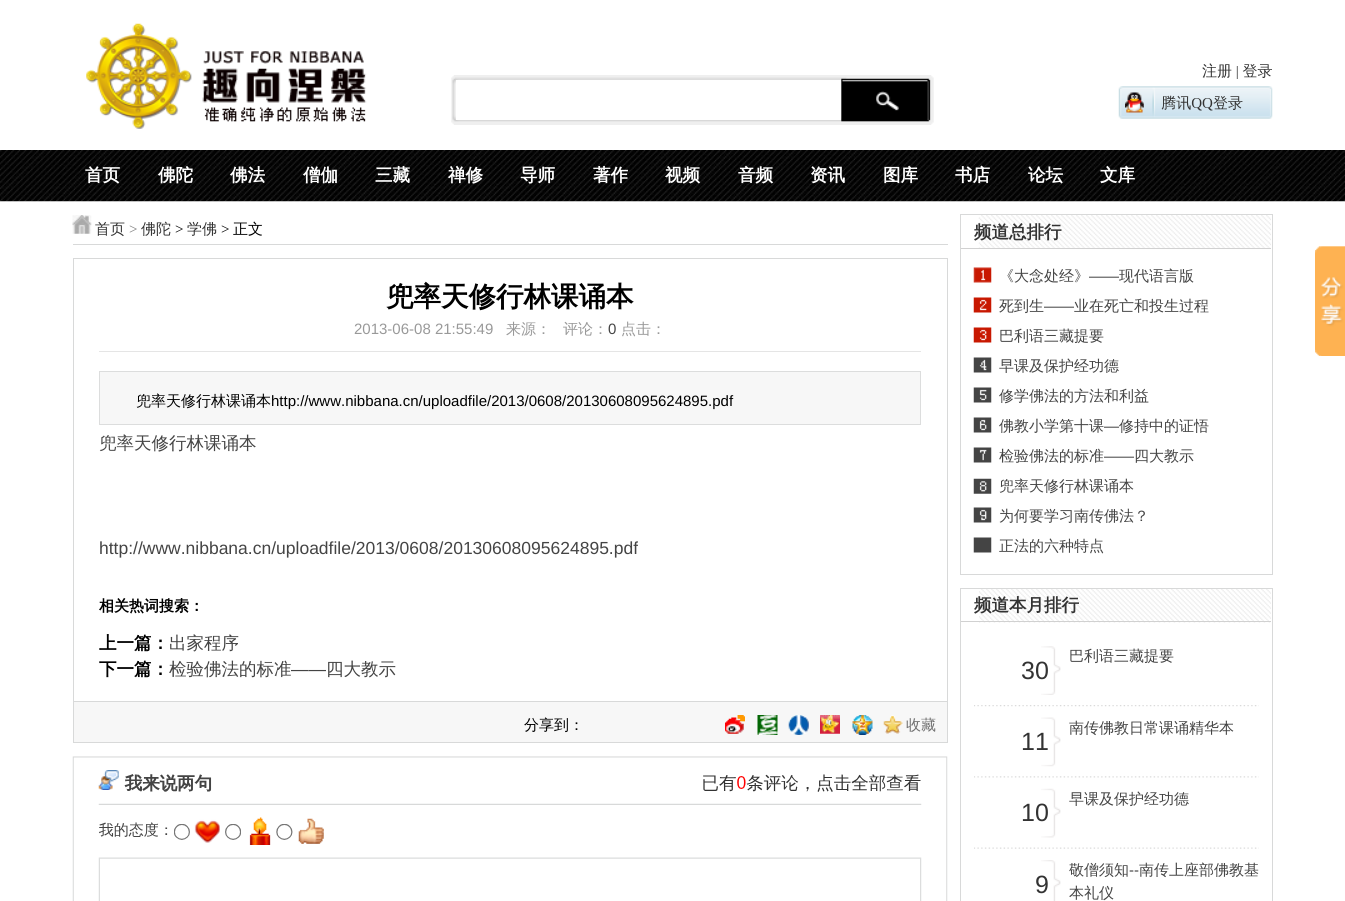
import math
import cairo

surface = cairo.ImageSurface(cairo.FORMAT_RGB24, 1345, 901)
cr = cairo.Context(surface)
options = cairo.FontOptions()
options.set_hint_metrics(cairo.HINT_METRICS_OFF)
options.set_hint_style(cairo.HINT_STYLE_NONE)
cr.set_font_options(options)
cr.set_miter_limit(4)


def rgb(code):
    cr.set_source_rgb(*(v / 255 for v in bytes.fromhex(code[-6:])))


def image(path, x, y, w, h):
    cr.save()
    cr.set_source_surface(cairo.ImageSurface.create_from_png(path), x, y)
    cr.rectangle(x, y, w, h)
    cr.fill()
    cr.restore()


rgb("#ffffff")
cr.paint()
image("img/1.png", 86, 23, 281, 106)
image("img/2.png", 451, 75, 483, 50)
rgb("#ffffff")
cr.rectangle(456, 80, 385, 40)
cr.fill()
image("img/3.png", 1118, 63, 155, 56)
image("img/4.png", 0, 150, 1345, 52)
image("img/5.png", 72, 215, 20, 19)
rgb("#d8d9d9")
cr.rectangle(73, 244, 875, 1)
cr.fill()
cr.rectangle(73.5, 258.5, 874, 444)
cr.set_line_width(1)
cr.stroke()
rgb("#e5e5e5")
cr.rectangle(99, 351, 822, 1)
cr.fill()
rgb("#f7f7f7")
cr.rectangle(99.5, 371.5, 821, 53)
cr.fill_preserve()
rgb("#dcdddd")
cr.stroke()
rgb("#f7f7f7")
cr.rectangle(73.5, 701.5, 874, 41)
cr.fill_preserve()
rgb("#d8d9d9")
cr.stroke()
image("img/6.png", 725, 715, 20, 19)
image("img/7.png", 757, 715, 21, 20)
image("img/8.png", 788, 715, 21, 20)
image("img/9.png", 820, 715, 20, 19)
image("img/10.png", 852, 715, 21, 20)
image("img/11.png", 883, 715, 20, 19)
image("img/12.png", 72, 756, 876, 145)
cr.rectangle(960.5, 214.5, 312, 360)
cr.stroke()
image("img/13.png", 978, 215, 293, 33)
rgb("#d1d1d1")
cr.rectangle(961, 248, 310, 1)
cr.fill()
image("img/14.png", 973, 267, 19, 286)
cr.rectangle(960.5, 588.5, 312, 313)
rgb("#d8d9d9")
cr.stroke()
image("img/15.png", 979, 589, 292, 34)
rgb("#d1d1d1")
cr.rectangle(961, 621, 310, 1)
cr.fill()
image("img/16.png", 1041, 646, 20, 49)
image("img/17.png", 974, 705, 285, 2)
image("img/18.png", 1041, 717, 20, 50)
image("img/19.png", 974, 776, 285, 2)
image("img/20.png", 1041, 788, 20, 50)
image("img/21.png", 974, 847, 285, 2)
image("img/22.png", 1041, 860, 20, 41)
image("img/23.png", 1315, 246, 30, 110)
cr.select_font_face("WenQuanYi Zen Hei", cairo.FONT_SLANT_NORMAL, cairo.FONT_WEIGHT_BOLD)
cr.set_font_size(17.5)
rgb("#ffffff")
for x, y, s in [
    (85, 181, "首页"),
    (158, 181, "佛陀"),
    (230, 181, "佛法"),
    (303, 181, "僧伽"),
    (375, 181, "三藏"),
    (448, 181, "禅修"),
    (520, 181, "导师"),
    (593, 181, "著作"),
    (665, 181, "视频"),
    (738, 181, "音频"),
    (810, 181, "资讯"),
    (883, 181, "图库"),
    (955, 181, "书店"),
    (1028, 181, "论坛"),
    (1100, 181, "文库"),
]:
    cr.move_to(x, y)
    cr.show_text(s)
cr.select_font_face("WenQuanYi Zen Hei Medium")
cr.set_font_size(15)
rgb("#333333")
cr.move_to(95, 234)
cr.show_text("首页")
cr.select_font_face("Liberation Serif")
rgb("#7e7e7e")
cr.move_to(129, 234)
cr.show_text(">")
cr.select_font_face("WenQuanYi Zen Hei Medium")
rgb("#333333")
cr.move_to(141, 234)
cr.show_text("佛陀")
cr.select_font_face("Liberation Serif")
rgb("#000000")
cr.move_to(175, 234)
cr.show_text(">")
cr.select_font_face("WenQuanYi Zen Hei Medium")
rgb("#333333")
cr.move_to(187, 234)
cr.show_text("学佛")
cr.select_font_face("Liberation Serif")
rgb("#000000")
cr.move_to(221, 234)
cr.show_text(">")
cr.select_font_face("WenQuanYi Zen Hei Medium")
cr.move_to(233, 234)
cr.show_text("正文")
cr.select_font_face("WenQuanYi Zen Hei", cairo.FONT_SLANT_NORMAL, cairo.FONT_WEIGHT_BOLD)
cr.set_font_size(27.5)
cr.move_to(386, 306)
cr.show_text("兜率天修行林课诵本")
cr.select_font_face("Liberation Sans")
cr.set_font_size(15)
rgb("#999999")
cr.move_to(354, 334)
cr.show_text("2013-06-08 21:55:49")
cr.select_font_face("WenQuanYi Zen Hei Medium")
cr.move_to(506, 334)
cr.show_text("来源：")
cr.move_to(563, 334)
cr.show_text("评论：")
cr.select_font_face("Liberation Sans")
rgb("#444444")
cr.move_to(608, 334)
cr.show_text("0")
cr.select_font_face("WenQuanYi Zen Hei Medium")
rgb("#999999")
cr.move_to(621, 334)
cr.show_text("点击：")
rgb("#000000")
cr.move_to(136, 406)
cr.show_text("兜率天修行林课诵本")
cr.select_font_face("Liberation Sans")
cr.move_to(271, 406)
cr.show_text("http://www.nibbana.cn/uploadfile/2013/0608/20130608095624895.pdf")
cr.select_font_face("WenQuanYi Zen Hei Medium")
cr.set_font_size(17.5)
rgb("#444444")
cr.move_to(99, 449)
cr.show_text("兜率天修行林课诵本")
cr.select_font_face("Liberation Sans")
cr.move_to(99, 554)
cr.show_text("http://www.nibbana.cn/uploadfile/2013/0608/20130608095624895.pdf")
cr.select_font_face("WenQuanYi Zen Hei", cairo.FONT_SLANT_NORMAL, cairo.FONT_WEIGHT_BOLD)
cr.set_font_size(15)
rgb("#000000")
cr.move_to(99, 611)
cr.show_text("相关热词搜索：")
cr.set_font_size(17.5)
cr.move_to(99, 649)
cr.show_text("上一篇：")
cr.select_font_face("WenQuanYi Zen Hei Medium")
rgb("#444444")
cr.move_to(169, 649)
cr.show_text("出家程序")
cr.select_font_face("WenQuanYi Zen Hei", cairo.FONT_SLANT_NORMAL, cairo.FONT_WEIGHT_BOLD)
rgb("#000000")
cr.move_to(99, 675)
cr.show_text("下一篇：")
cr.select_font_face("WenQuanYi Zen Hei Medium")
rgb("#444444")
cr.move_to(169, 675)
cr.show_text("检验佛法的标准")
cr.select_font_face("Liberation Sans")
cr.move_to(291, 675)
cr.show_text("——")
cr.select_font_face("WenQuanYi Zen Hei Medium")
cr.move_to(326, 675)
cr.show_text("四大教示")
cr.set_font_size(15)
rgb("#000000")
cr.move_to(524, 730)
cr.show_text("分享到：")
rgb("#707070")
cr.move_to(906, 730)
cr.show_text("收藏")
cr.select_font_face("WenQuanYi Zen Hei", cairo.FONT_SLANT_NORMAL, cairo.FONT_WEIGHT_BOLD)
cr.set_font_size(17.5)
rgb("#333333")
cr.move_to(974, 238)
cr.show_text("频道总排行")
cr.select_font_face("WenQuanYi Zen Hei Medium")
cr.set_font_size(15)
rgb("#444444")
cr.move_to(999, 281)
cr.show_text("《大念处经》")
cr.select_font_face("Liberation Sans")
cr.move_to(1089, 281)
cr.show_text("——")
cr.select_font_face("WenQuanYi Zen Hei Medium")
cr.move_to(1119, 281)
cr.show_text("现代语言版")
cr.move_to(999, 311)
cr.show_text("死到生")
cr.select_font_face("Liberation Sans")
cr.move_to(1044, 311)
cr.show_text("——")
cr.select_font_face("WenQuanYi Zen Hei Medium")
for x, y, s in [
    (1074, 311, "业在死亡和投生过程"),
    (999, 341, "巴利语三藏提要"),
    (999, 371, "早课及保护经功德"),
    (999, 401, "修学佛法的方法和利益"),
    (999, 431, "佛教小学第十课"),
]:
    cr.move_to(x, y)
    cr.show_text(s)
cr.select_font_face("Liberation Sans")
cr.move_to(1104, 431)
cr.show_text("—")
cr.select_font_face("WenQuanYi Zen Hei Medium")
cr.move_to(1119, 431)
cr.show_text("修持中的证悟")
cr.move_to(999, 461)
cr.show_text("检验佛法的标准")
cr.select_font_face("Liberation Sans")
cr.move_to(1104, 461)
cr.show_text("——")
cr.select_font_face("WenQuanYi Zen Hei Medium")
for x, y, s in [
    (1134, 461, "四大教示"),
    (999, 491, "兜率天修行林课诵本"),
    (999, 521, "为何要学习南传佛法？"),
    (999, 551, "正法的六种特点"),
]:
    cr.move_to(x, y)
    cr.show_text(s)
cr.select_font_face("WenQuanYi Zen Hei", cairo.FONT_SLANT_NORMAL, cairo.FONT_WEIGHT_BOLD)
cr.set_font_size(17.5)
rgb("#333333")
cr.move_to(974, 611)
cr.show_text("频道本月排行")
cr.select_font_face("WenQuanYi Zen Hei Medium")
cr.set_font_size(15)
rgb("#444444")
cr.move_to(1069, 661)
cr.show_text("巴利语三藏提要")
cr.select_font_face("Liberation Sans")
cr.set_font_size(25)
rgb("#333333")
cr.move_to(1021, 679)
cr.show_text("30")
cr.select_font_face("WenQuanYi Zen Hei Medium")
cr.set_font_size(15)
rgb("#444444")
cr.move_to(1069, 733)
cr.show_text("南传佛教日常课诵精华本")
cr.select_font_face("Liberation Sans")
cr.set_font_size(25)
rgb("#333333")
cr.move_to(1021, 750)
cr.show_text("11")
cr.select_font_face("WenQuanYi Zen Hei Medium")
cr.set_font_size(15)
rgb("#444444")
cr.move_to(1069, 804)
cr.show_text("早课及保护经功德")
cr.select_font_face("Liberation Sans")
cr.set_font_size(25)
rgb("#333333")
cr.move_to(1021, 821)
cr.show_text("10")
cr.move_to(1035, 893)
cr.show_text("9")
cr.select_font_face("WenQuanYi Zen Hei Medium")
cr.set_font_size(15)
rgb("#444444")
cr.move_to(1069, 875)
cr.show_text("敬僧须知")
cr.select_font_face("Liberation Sans")
cr.move_to(1129, 875)
cr.show_text("--")
cr.select_font_face("WenQuanYi Zen Hei Medium")
cr.move_to(1139, 875)
cr.show_text("南传上座部佛教基")
cr.move_to(1069, 898)
cr.show_text("本礼仪")
surface.write_to_png("page.png")
